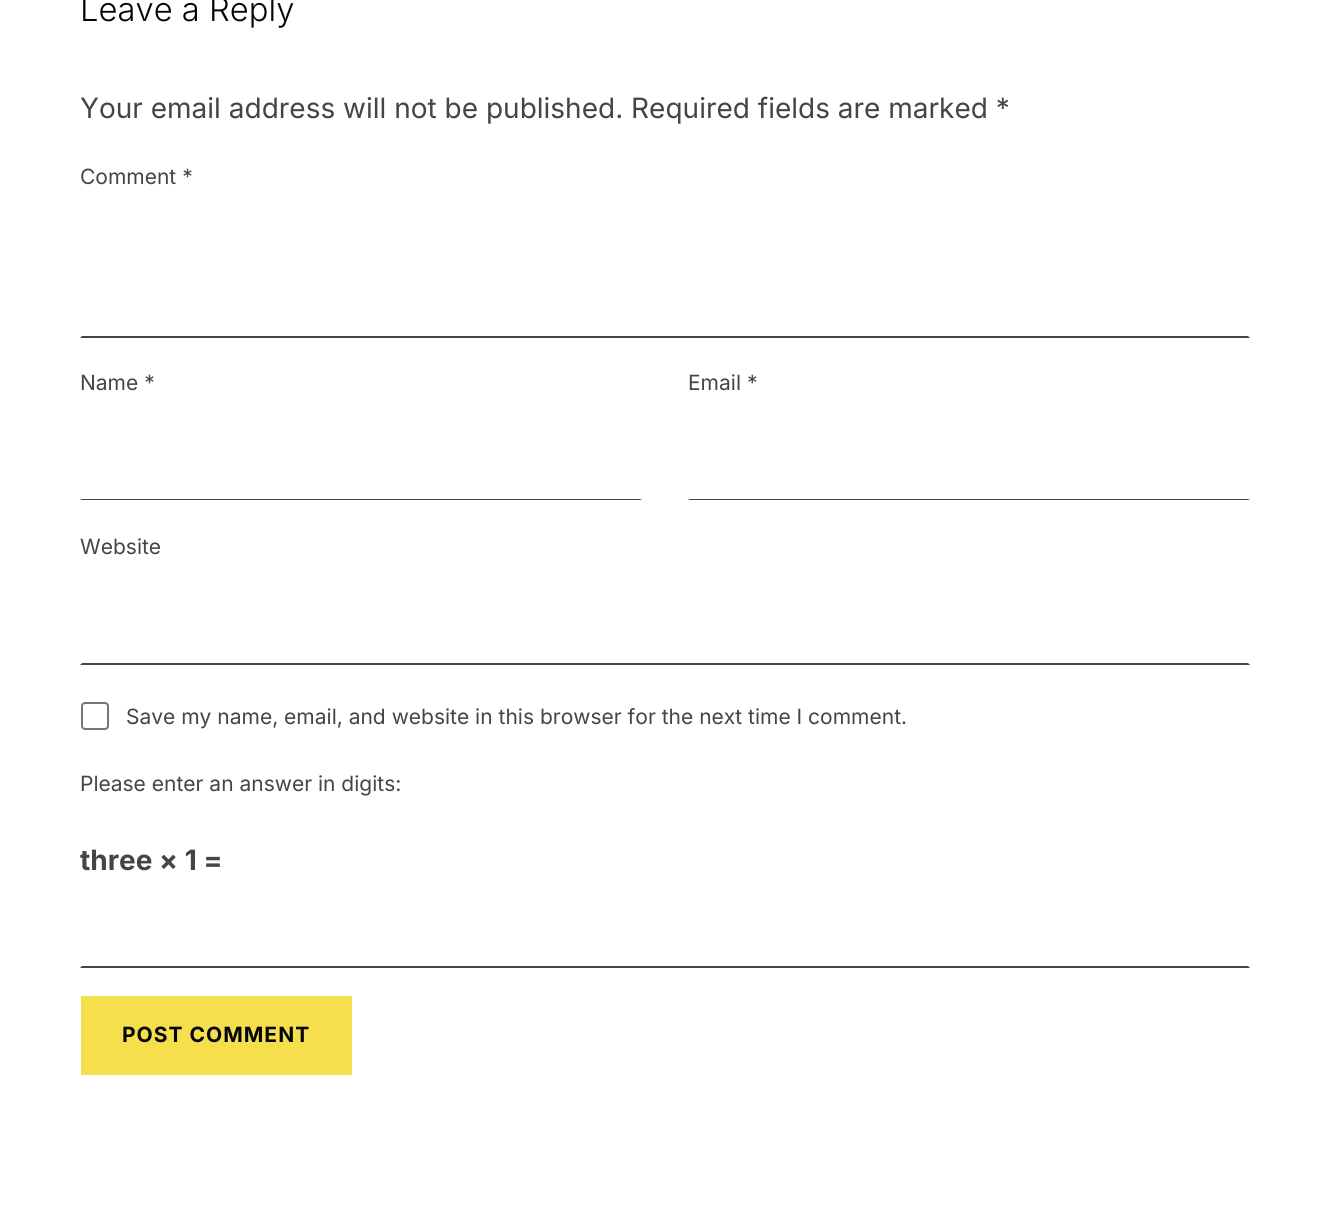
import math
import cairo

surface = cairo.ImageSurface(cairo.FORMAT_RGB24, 1329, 1214)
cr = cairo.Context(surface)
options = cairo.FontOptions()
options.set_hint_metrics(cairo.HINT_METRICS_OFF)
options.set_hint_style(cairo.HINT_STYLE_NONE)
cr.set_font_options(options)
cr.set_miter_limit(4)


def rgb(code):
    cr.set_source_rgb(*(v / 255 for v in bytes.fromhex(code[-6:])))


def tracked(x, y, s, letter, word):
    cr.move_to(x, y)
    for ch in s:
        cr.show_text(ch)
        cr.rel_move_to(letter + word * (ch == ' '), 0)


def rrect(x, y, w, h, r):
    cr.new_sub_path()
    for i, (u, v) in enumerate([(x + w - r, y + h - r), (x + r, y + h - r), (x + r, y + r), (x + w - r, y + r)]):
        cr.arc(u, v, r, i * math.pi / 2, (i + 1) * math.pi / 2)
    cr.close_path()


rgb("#ffffff")
cr.paint()
rgb("#434547")
cr.new_path()
cr.move_to(1250, 338)
cr.line_to(80, 338)
cr.line_to(82, 336)
cr.line_to(1248, 336)
cr.close_path()
cr.fill()
cr.new_path()
cr.move_to(642, 500)
cr.line_to(80, 500)
cr.line_to(82, 499)
cr.line_to(640, 499)
cr.close_path()
cr.fill()
cr.new_path()
cr.move_to(1250, 500)
cr.line_to(688, 500)
cr.line_to(690, 499)
cr.line_to(1248, 499)
cr.close_path()
cr.fill()
cr.new_path()
cr.move_to(1250, 665)
cr.line_to(80, 665)
cr.line_to(82, 663)
cr.line_to(1248, 663)
cr.close_path()
cr.fill()
rrect(82, 703, 26, 26, 3)
rgb("#767676")
cr.stroke()
rgb("#434547")
cr.new_path()
cr.move_to(1250, 968)
cr.line_to(80, 968)
cr.line_to(82, 966)
cr.line_to(1248, 966)
cr.close_path()
cr.fill()
rgb("#f5df4d")
cr.rectangle(81, 996, 271, 79)
cr.fill()
cr.select_font_face("Inter Light")
cr.set_font_size(32.75)
rgb("#030507")
cr.move_to(80, 21)
cr.show_text("Leave a Reply")
cr.select_font_face("Inter")
cr.set_font_size(28)
rgb("#434547")
cr.move_to(80, 118)
cr.show_text("Your email address will not be published. Required fields are marked *")
cr.set_font_size(21)
for x, y, s in [
    (80, 184, "Comment *"),
    (80, 390, "Name *"),
    (688, 390, "Email *"),
    (80, 554, "Website"),
    (126, 724, "Save my name, email, and website in this browser for the next time I comment."),
    (80, 791, "Please enter an answer in digits:"),
]:
    cr.move_to(x, y)
    cr.show_text(s)
cr.select_font_face("Inter", cairo.FONT_SLANT_NORMAL, cairo.FONT_WEIGHT_BOLD)
cr.set_font_size(28)
cr.move_to(80, 870)
cr.show_text("three × 1 =")
cr.set_font_size(21)
rgb("#030507")
tracked(122, 1042, "POST COMMENT", 1, 0)
surface.write_to_png("page.png")
